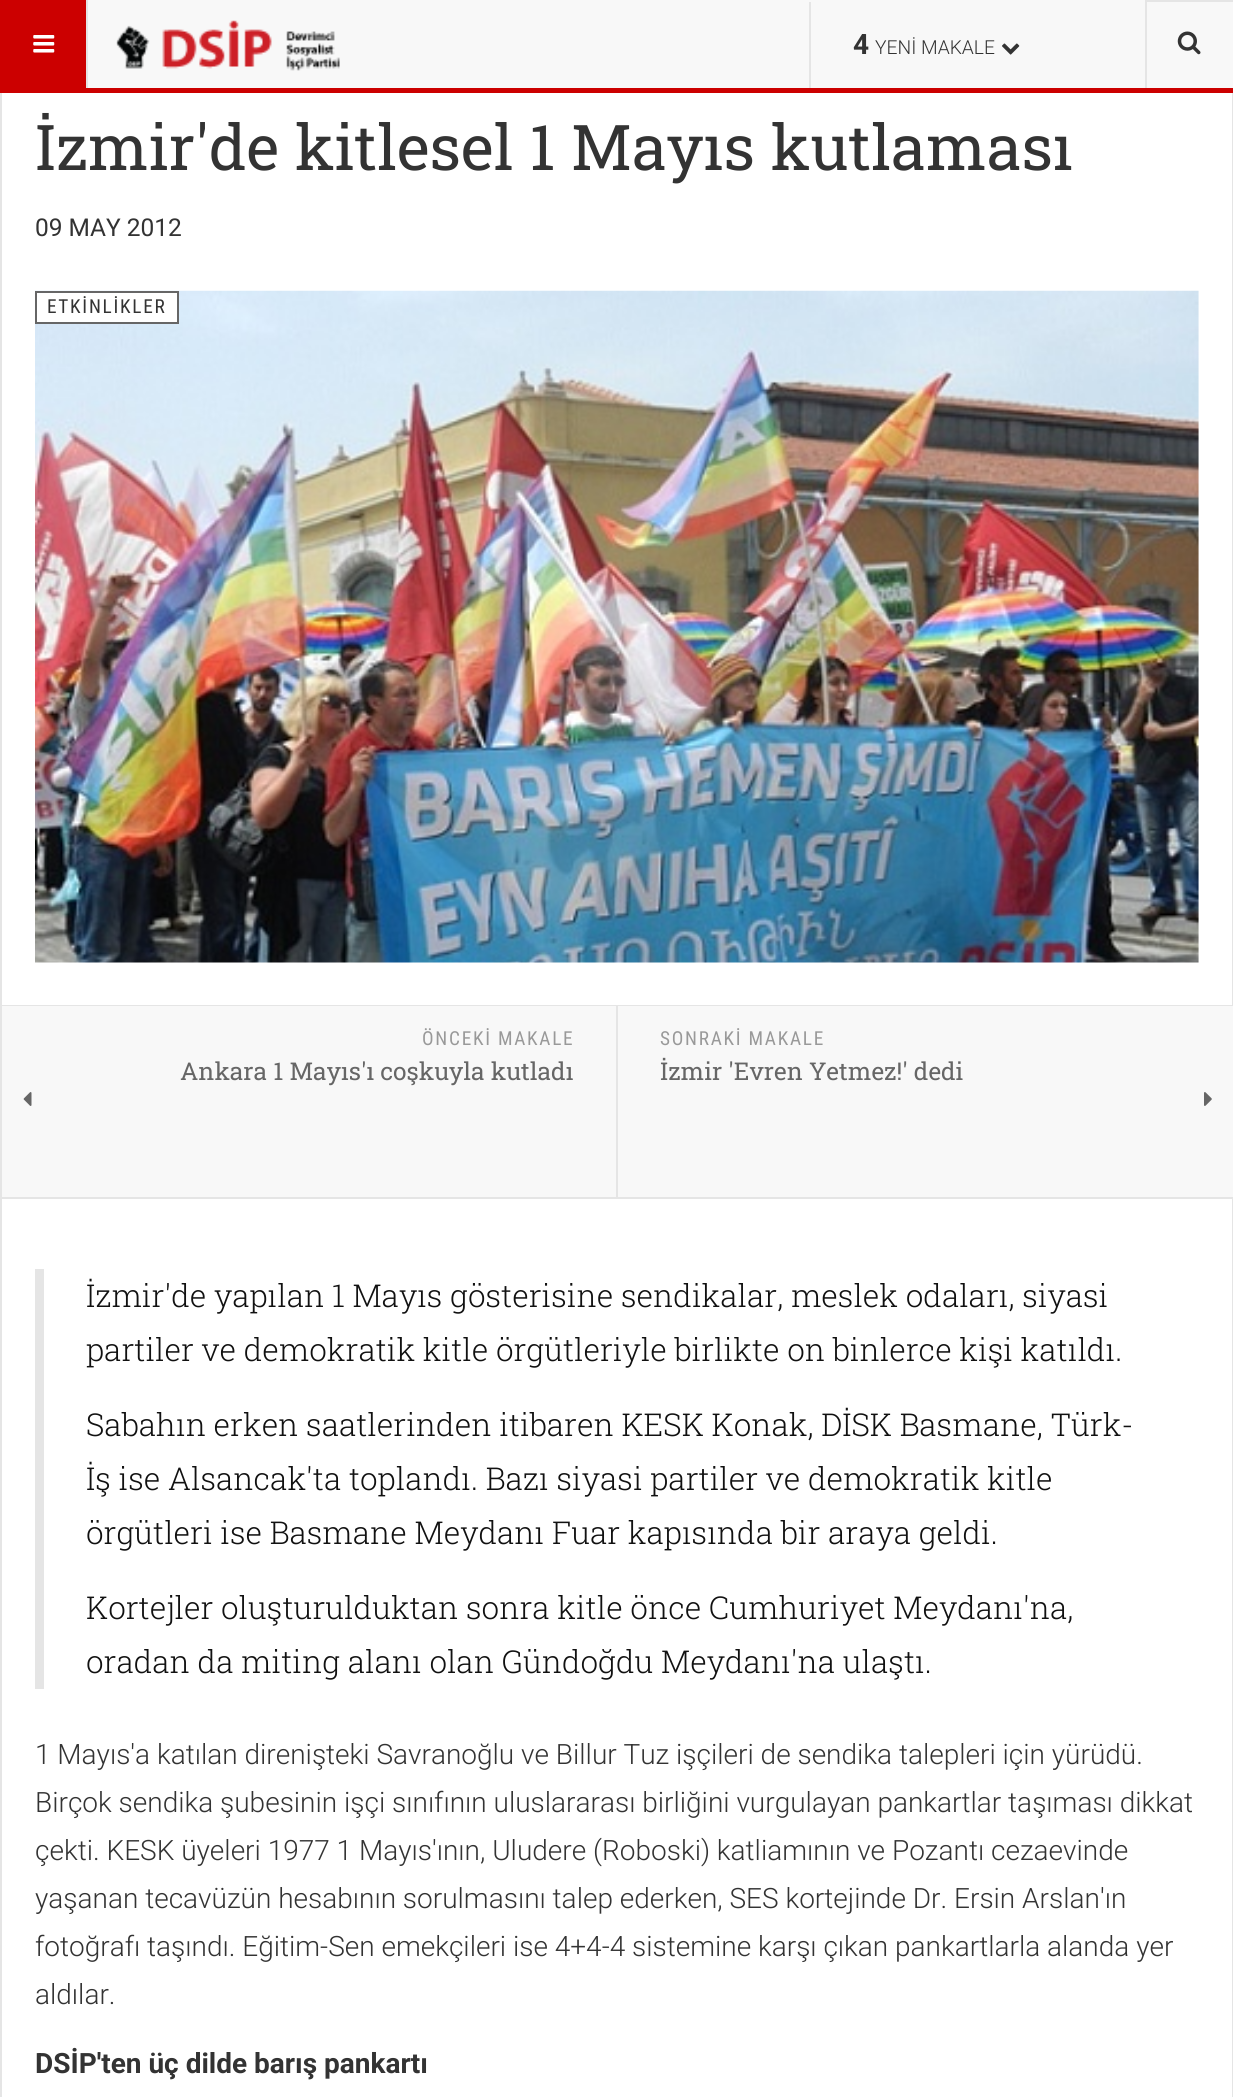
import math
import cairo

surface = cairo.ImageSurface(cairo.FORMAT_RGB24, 1233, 2097)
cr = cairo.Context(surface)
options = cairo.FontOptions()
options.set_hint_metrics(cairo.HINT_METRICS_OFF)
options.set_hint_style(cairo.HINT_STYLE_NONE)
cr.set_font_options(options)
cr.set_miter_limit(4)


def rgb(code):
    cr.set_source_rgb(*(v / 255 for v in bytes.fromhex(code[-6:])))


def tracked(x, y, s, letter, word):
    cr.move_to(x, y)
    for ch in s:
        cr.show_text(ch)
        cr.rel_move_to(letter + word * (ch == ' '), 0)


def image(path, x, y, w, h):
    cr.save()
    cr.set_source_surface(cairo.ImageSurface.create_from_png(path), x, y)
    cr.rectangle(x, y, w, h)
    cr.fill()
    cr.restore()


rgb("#ffffff")
cr.paint()
cr.rectangle(1, 66, 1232, 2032)
rgb("#e5e5e5")
cr.stroke()
for x, y, w, h, color in [
    (88, 0, 1145, 88, "#f8f8f8"),
    (0, 88, 1233, 5, "#cc0000"),
    (0, 0, 86, 88, "#cc0000"),
    (86, 0, 2, 88, "#e5e5e5"),
]:
    rgb(color)
    cr.rectangle(x, y, w, h)
    cr.fill()
image("img/1.png", 33, 35, 22, 18)
image("img/2.png", 116, 20, 224, 51)
cr.rectangle(809, 2, 2, 86)
cr.fill()
image("img/3.png", 1002, 43, 18, 12)
cr.rectangle(1146, 0, 87, 2)
cr.fill()
cr.rectangle(1145, 0, 2, 88)
cr.fill()
image("img/4.png", 1177, 31, 24, 24)
image("img/5.png", 35, 290, 1164, 673)
rgb("#ffffff")
cr.rectangle(36, 292, 142, 31)
cr.fill_preserve()
rgb("#666666")
cr.stroke()
for x, y, w, h, color in [
    (0, 1005, 1233, 1, "#e5e5e5"),
    (0, 1197, 1233, 2, "#e5e5e5"),
    (616, 1006, 2, 191, "#e5e5e5"),
    (2, 1006, 614, 191, "#f8f8f8"),
]:
    rgb(color)
    cr.rectangle(x, y, w, h)
    cr.fill()
image("img/6.png", 23, 1092, 9, 14)
cr.rectangle(618, 1006, 615, 191)
cr.fill()
image("img/7.png", 1204, 1092, 8, 14)
rgb("#e5e5e5")
cr.rectangle(35, 1269, 9, 420)
cr.fill()
cr.select_font_face("Roboto", cairo.FONT_SLANT_NORMAL, cairo.FONT_WEIGHT_BOLD)
cr.set_font_size(28)
rgb("#333333")
cr.move_to(853, 54)
cr.show_text("4")
cr.select_font_face("Roboto Light")
cr.set_font_size(19.25)
cr.move_to(875, 54)
cr.show_text("YENİ MAKALE")
cr.select_font_face("Roboto Slab")
cr.set_font_size(63)
cr.move_to(35, 170)
cr.show_text("İzmir'de kitlesel 1 Mayıs kutlaması")
cr.select_font_face("Roboto")
cr.set_font_size(24.5)
cr.move_to(35, 236)
cr.show_text("09 MAY 2012")
cr.select_font_face("Roboto Condensed")
cr.set_font_size(19.25)
tracked(47, 313, "ETKİNLİKLER", 1.75, 0)
rgb("#999999")
tracked(422, 1045, "ÖNCEKİ MAKALE", 1.75, 0)
cr.select_font_face("Roboto Slab")
cr.set_font_size(24.5)
rgb("#666666")
cr.move_to(180, 1080)
cr.show_text("Ankara 1 Mayıs'ı coşkuyla kutladı")
cr.select_font_face("Roboto Condensed")
cr.set_font_size(19.25)
rgb("#999999")
tracked(660, 1045, "SONRAKİ MAKALE", 1.75, 0)
cr.select_font_face("Roboto Slab")
cr.set_font_size(24.5)
rgb("#666666")
cr.move_to(660, 1080)
cr.show_text("İzmir 'Evren Yetmez!' dedi")
cr.select_font_face("Roboto Slab Light")
cr.set_font_size(31.5)
rgb("#111111")
for x, y, s in [
    (86, 1307, "İzmir'de yapılan 1 Mayıs gösterisine sendikalar, meslek odaları, siyasi"),
    (86, 1361, "partiler ve demokratik kitle örgütleriyle birlikte on binlerce kişi katıldı."),
    (86, 1436, "Sabahın erken saatlerinden itibaren KESK Konak, DİSK Basmane, Türk-"),
    (86, 1490, "İş ise Alsancak'ta toplandı. Bazı siyasi partiler ve demokratik kitle"),
    (86, 1544, "örgütleri ise Basmane Meydanı Fuar kapısında bir araya geldi."),
    (86, 1619, "Kortejler oluşturulduktan sonra kitle önce Cumhuriyet Meydanı'na,"),
    (86, 1673, "oradan da miting alanı olan Gündoğdu Meydanı'na ulaştı."),
]:
    cr.move_to(x, y)
    cr.show_text(s)
cr.select_font_face("Roboto Light")
cr.set_font_size(28)
rgb("#333333")
for x, y, s in [
    (35, 1764, "1 Mayıs'a katılan direnişteki Savranoğlu ve Billur Tuz işçileri de sendika talepleri için yürüdü."),
    (35, 1812, "Birçok sendika şubesinin işçi sınıfının uluslararası birliğini vurgulayan pankartlar taşıması dikkat"),
    (35, 1860, "çekti. KESK üyeleri 1977 1 Mayıs'ının, Uludere (Roboski) katliamının ve Pozantı cezaevinde"),
    (35, 1908, "yaşanan tecavüzün hesabının sorulmasını talep ederken, SES kortejinde Dr. Ersin Arslan'ın"),
    (35, 1956, "fotoğrafı taşındı. Eğitim-Sen emekçileri ise 4+4-4 sistemine karşı çıkan pankartlarla alanda yer"),
    (35, 2004, "aldılar."),
]:
    cr.move_to(x, y)
    cr.show_text(s)
cr.select_font_face("Roboto", cairo.FONT_SLANT_NORMAL, cairo.FONT_WEIGHT_BOLD)
cr.move_to(35, 2073)
cr.show_text("DSİP'ten üç dilde barış pankartı")
surface.write_to_png("page.png")
